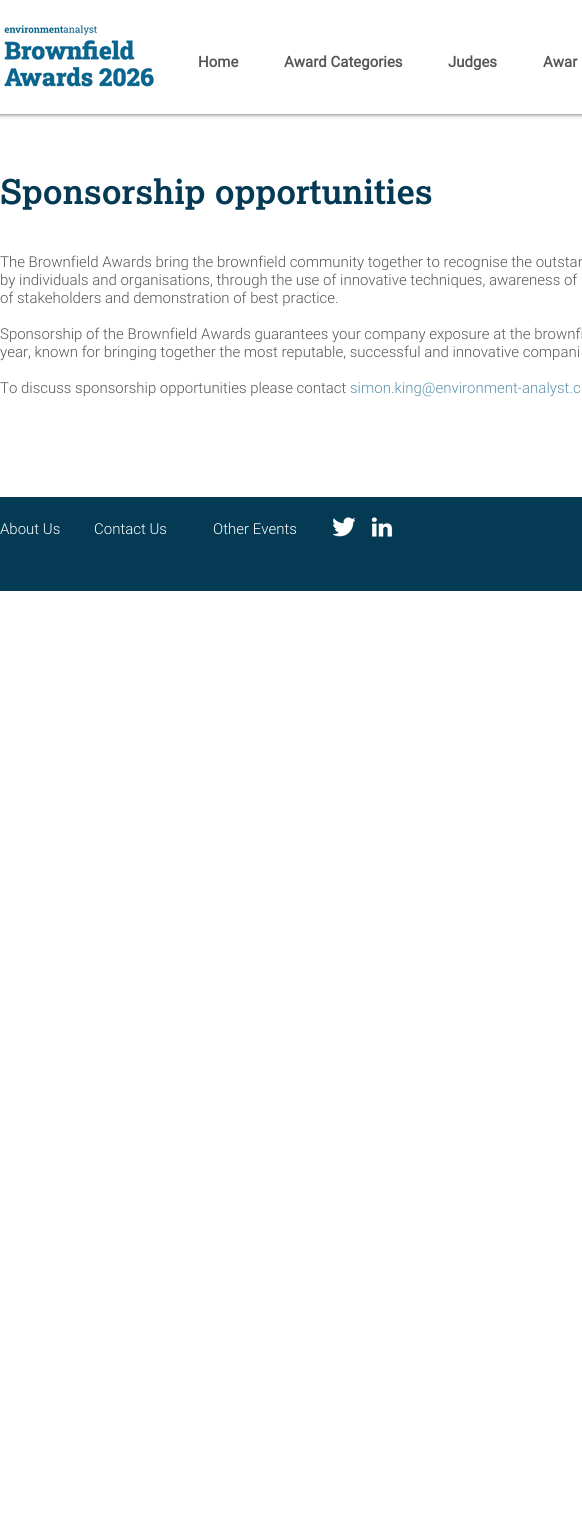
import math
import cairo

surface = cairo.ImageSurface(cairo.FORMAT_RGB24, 582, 1521)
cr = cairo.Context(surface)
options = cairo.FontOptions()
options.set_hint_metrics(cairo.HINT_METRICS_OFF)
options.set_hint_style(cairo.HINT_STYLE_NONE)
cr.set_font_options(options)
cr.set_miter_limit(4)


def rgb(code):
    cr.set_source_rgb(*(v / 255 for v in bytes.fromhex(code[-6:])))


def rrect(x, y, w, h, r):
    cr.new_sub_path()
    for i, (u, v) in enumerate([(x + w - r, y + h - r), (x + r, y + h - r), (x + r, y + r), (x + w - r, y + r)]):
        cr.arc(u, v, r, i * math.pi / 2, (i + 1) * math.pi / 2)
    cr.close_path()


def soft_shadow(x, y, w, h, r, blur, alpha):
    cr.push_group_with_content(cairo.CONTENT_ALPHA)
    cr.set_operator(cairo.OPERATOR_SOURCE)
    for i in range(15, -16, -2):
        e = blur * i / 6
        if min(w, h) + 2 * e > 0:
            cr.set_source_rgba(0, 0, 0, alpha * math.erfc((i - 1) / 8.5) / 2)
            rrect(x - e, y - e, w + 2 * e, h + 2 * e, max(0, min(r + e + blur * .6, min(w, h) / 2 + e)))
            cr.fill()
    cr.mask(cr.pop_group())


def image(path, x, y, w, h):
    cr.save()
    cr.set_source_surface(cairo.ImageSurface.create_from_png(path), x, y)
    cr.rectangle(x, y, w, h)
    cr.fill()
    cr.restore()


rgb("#ffffff")
cr.paint()
cr.save()
cr.rectangle(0, 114, 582, 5)
cr.clip()
rgb("#000000")
soft_shadow(0, 0, 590, 114, 0, 2.5, 0.7)
cr.restore()
image("img/1.png", 4, 25, 150, 62)
rgb("#043a54")
cr.rectangle(0, 497, 582, 94)
cr.fill()
image("img/2.png", 333, 517, 22, 20)
image("img/3.png", 371, 517, 22, 20)
cr.select_font_face("Roboto", cairo.FONT_SLANT_NORMAL, cairo.FONT_WEIGHT_BOLD)
cr.set_font_size(15)
rgb("#555555")
for x, y, s in [
    (198, 67, "Home"),
    (284, 67, "Award Categories"),
    (448, 67, "Judges"),
    (543, 67, "Awar"),
]:
    cr.move_to(x, y)
    cr.show_text(s)
cr.select_font_face("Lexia", cairo.FONT_SLANT_NORMAL, cairo.FONT_WEIGHT_BOLD)
cr.set_font_size(34)
rgb("#043a54")
cr.move_to(0, 204)
cr.show_text("Sponsorship opportunities")
cr.select_font_face("Roboto Light")
cr.set_font_size(15)
rgb("#555555")
for x, y, s in [
    (0, 267, "The Brownfield Awards bring the brownfield community together to recognise the outstan"),
    (0, 285, "by individuals and organisations, through the use of innovative techniques, awareness of"),
    (0, 303, "of stakeholders and demonstration of best practice."),
    (0, 339, "Sponsorship of the Brownfield Awards guarantees your company exposure at the brownfi"),
    (0, 357, "year, known for bringing together the most reputable, successful and innovative compani"),
    (0, 393, "To discuss sponsorship opportunities please contact"),
]:
    cr.move_to(x, y)
    cr.show_text(s)
rgb("#5c91ad")
cr.move_to(350, 393)
cr.show_text("simon.king@environment-analyst.c")
rgb("#ffffff")
for x, y, s in [
    (0, 534, "About Us"),
    (94, 534, "Contact Us"),
    (213, 534, "Other Events"),
]:
    cr.move_to(x, y)
    cr.show_text(s)
surface.write_to_png("page.png")
